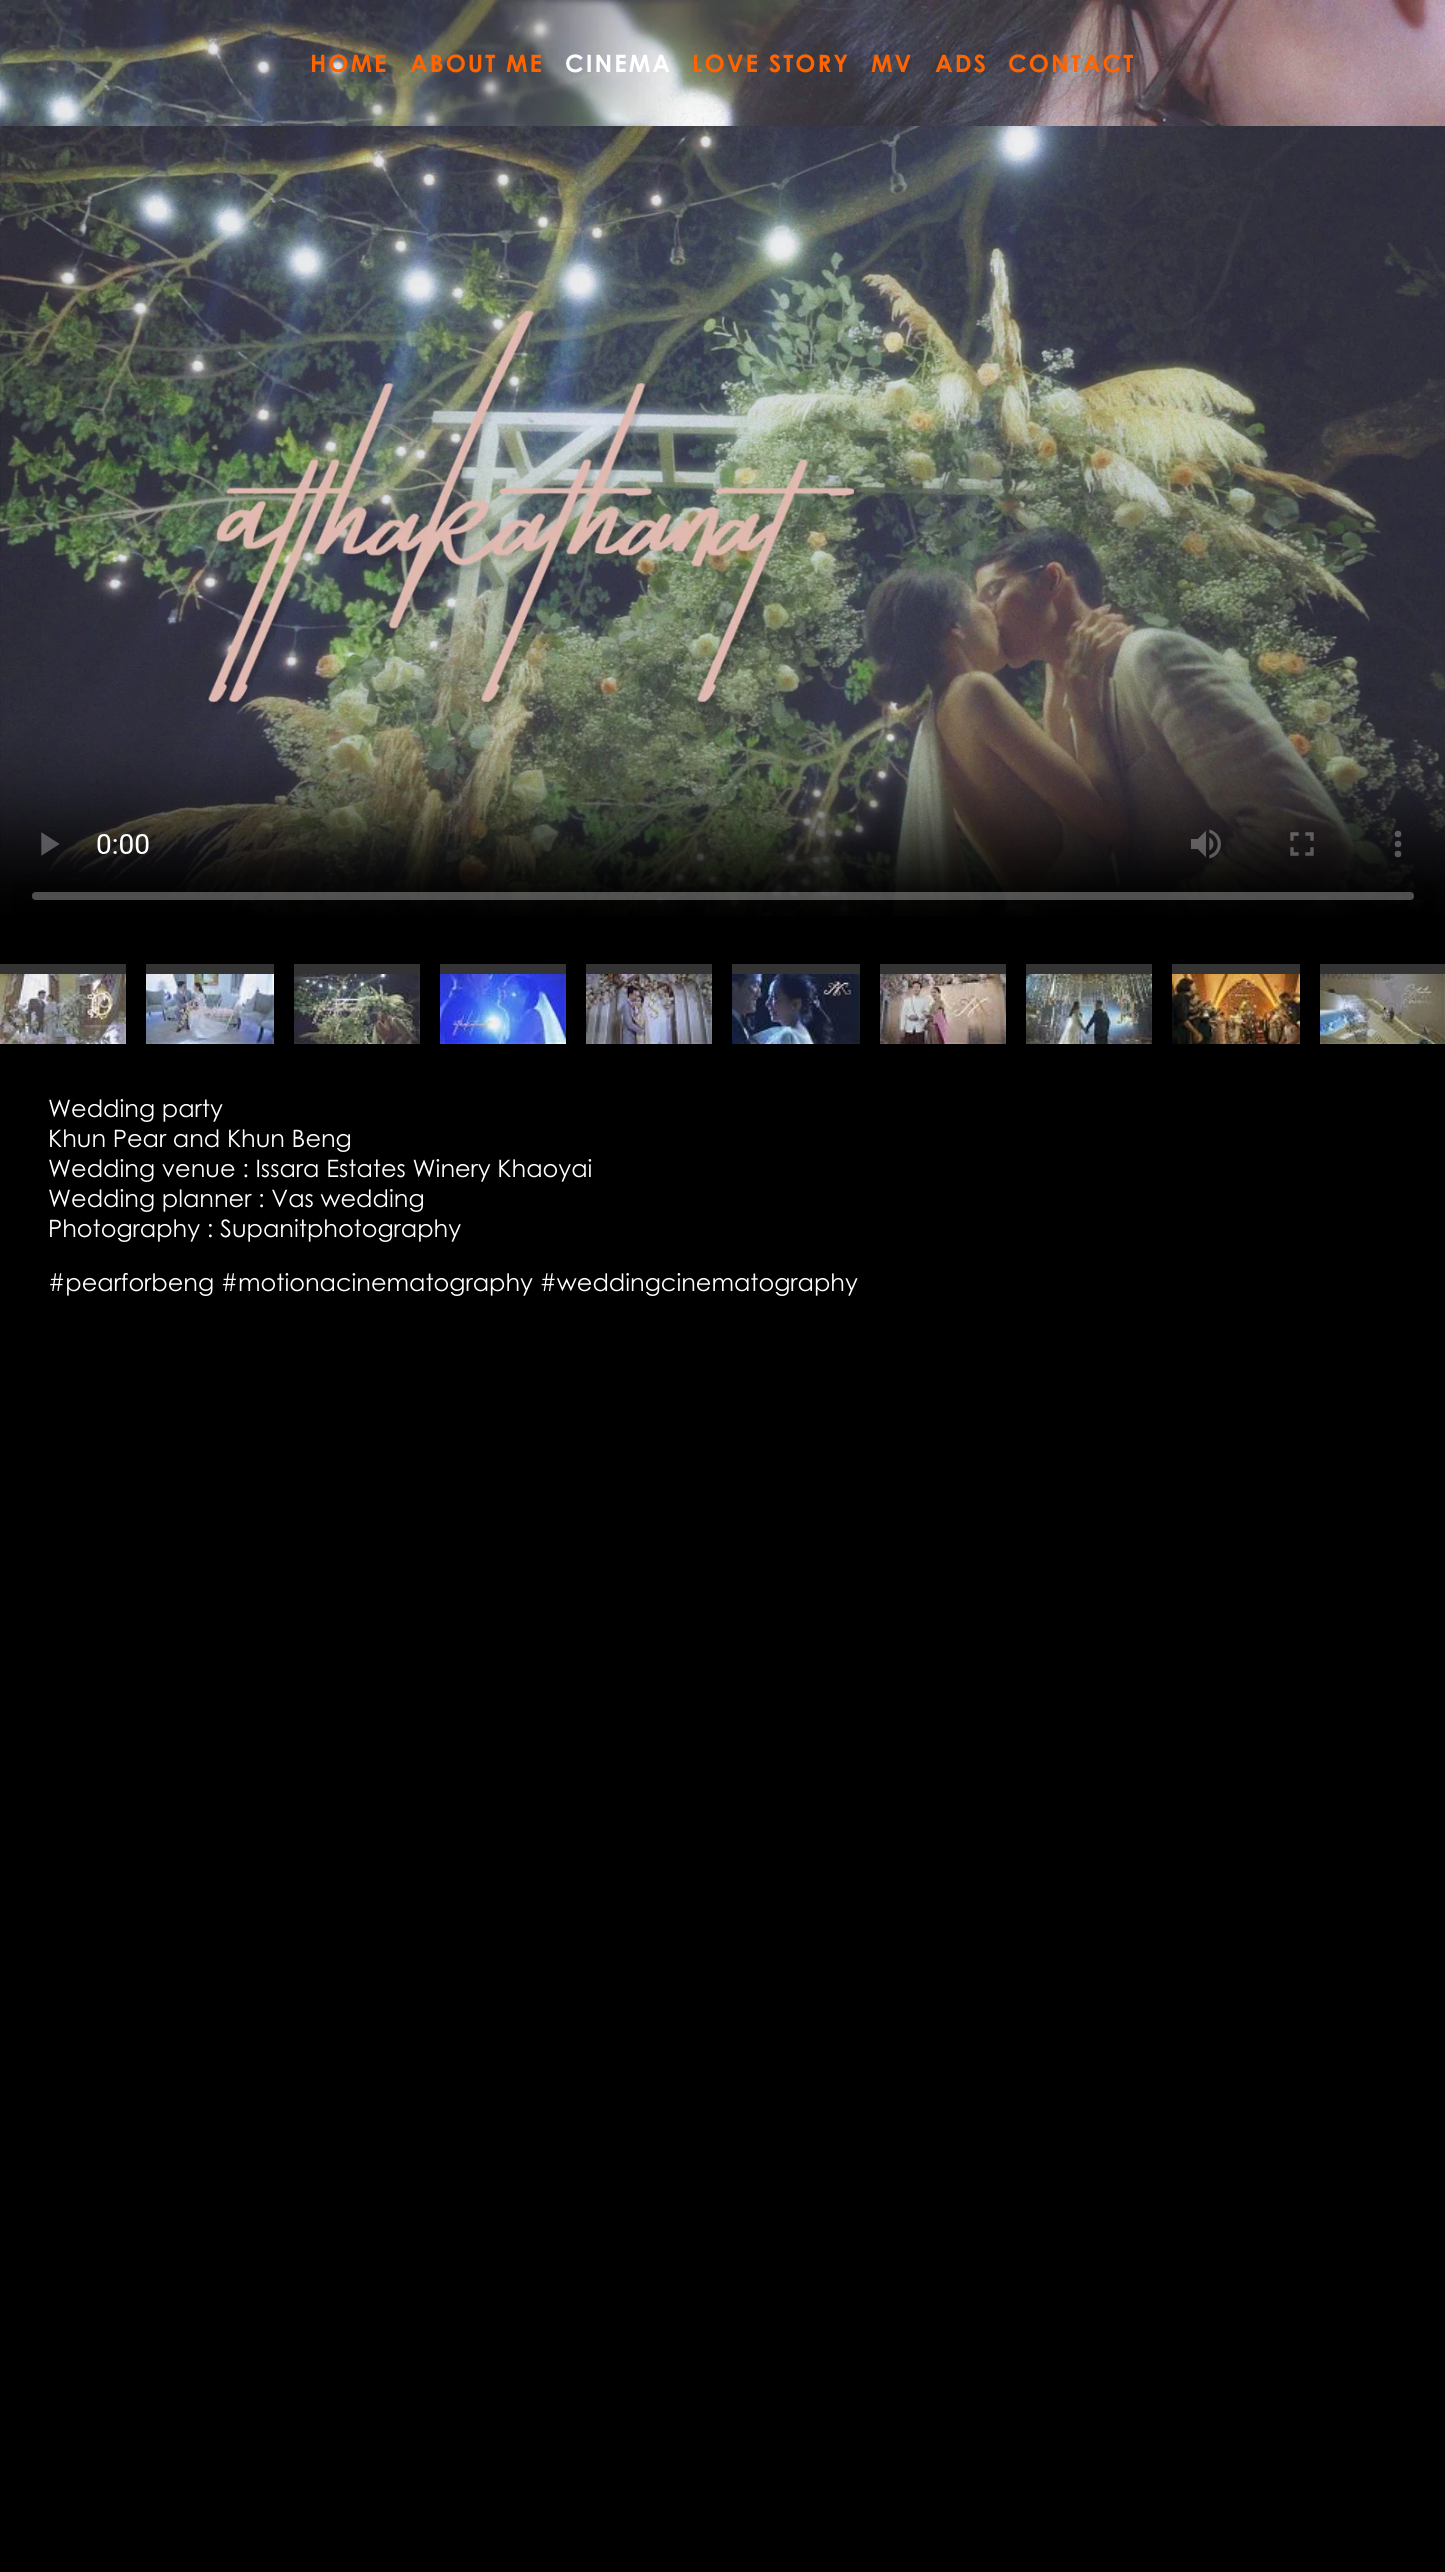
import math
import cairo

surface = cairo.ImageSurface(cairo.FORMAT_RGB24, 1445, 2572)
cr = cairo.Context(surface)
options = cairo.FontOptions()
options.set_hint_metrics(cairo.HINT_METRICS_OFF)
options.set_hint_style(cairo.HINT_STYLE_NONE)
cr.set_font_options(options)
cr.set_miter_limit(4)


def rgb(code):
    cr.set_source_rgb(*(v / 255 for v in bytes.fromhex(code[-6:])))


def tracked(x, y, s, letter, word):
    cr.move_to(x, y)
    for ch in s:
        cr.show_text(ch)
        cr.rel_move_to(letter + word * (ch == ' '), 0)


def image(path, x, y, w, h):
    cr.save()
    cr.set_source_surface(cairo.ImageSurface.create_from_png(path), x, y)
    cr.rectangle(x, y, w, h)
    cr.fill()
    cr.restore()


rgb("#000000")
cr.paint()
image("img/1.png", 0, 0, 1445, 126)
image("img/2.png", 0, 126, 1445, 790)
rgb("#333333")
cr.rectangle(0, 964, 126, 10)
cr.fill()
image("img/3.png", 0, 974, 126, 70)
cr.rectangle(146, 964, 128, 10)
cr.fill()
image("img/4.png", 146, 974, 128, 70)
cr.rectangle(294, 964, 126, 10)
cr.fill()
image("img/5.png", 294, 974, 126, 70)
cr.rectangle(440, 964, 126, 10)
cr.fill()
image("img/6.png", 440, 974, 126, 70)
cr.rectangle(586, 964, 126, 10)
cr.fill()
image("img/7.png", 586, 974, 126, 70)
cr.rectangle(732, 964, 128, 10)
cr.fill()
image("img/8.png", 732, 974, 128, 70)
cr.rectangle(880, 964, 126, 10)
cr.fill()
image("img/9.png", 880, 974, 126, 70)
cr.rectangle(1026, 964, 126, 10)
cr.fill()
image("img/10.png", 1026, 974, 126, 70)
cr.rectangle(1172, 964, 128, 10)
cr.fill()
image("img/11.png", 1172, 974, 128, 70)
cr.rectangle(1320, 964, 125, 10)
cr.fill()
image("img/12.png", 1320, 974, 125, 70)
cr.select_font_face("Century Gothic", cairo.FONT_SLANT_NORMAL, cairo.FONT_WEIGHT_BOLD)
cr.set_font_size(24)
rgb("#ff6400")
tracked(310, 72, "HOME", 2, 0)
tracked(410, 72, "ABOUT ME", 2, 0)
rgb("#ffffff")
tracked(565, 72, "CINEMA", 2, 0)
rgb("#ff6400")
for x, y, s in [
    (692, 72, "LOVE STORY"),
    (871, 72, "MV"),
    (935, 72, "ADS"),
    (1008, 72, "CONTACT"),
]:
    tracked(x, y, s, 2, 0)
cr.select_font_face("Century Gothic")
rgb("#ffffff")
for x, y, s in [
    (48, 1117, "Wedding party"),
    (48, 1147, "Khun Pear and Khun Beng"),
    (48, 1177, "Wedding venue : Issara Estates Winery Khaoyai"),
    (48, 1207, "Wedding planner : Vas wedding"),
    (48, 1237, "Photography : Supanitphotography"),
    (48, 1291, "#pearforbeng #motionacinematography #weddingcinematography"),
]:
    cr.move_to(x, y)
    cr.show_text(s)
surface.write_to_png("page.png")
